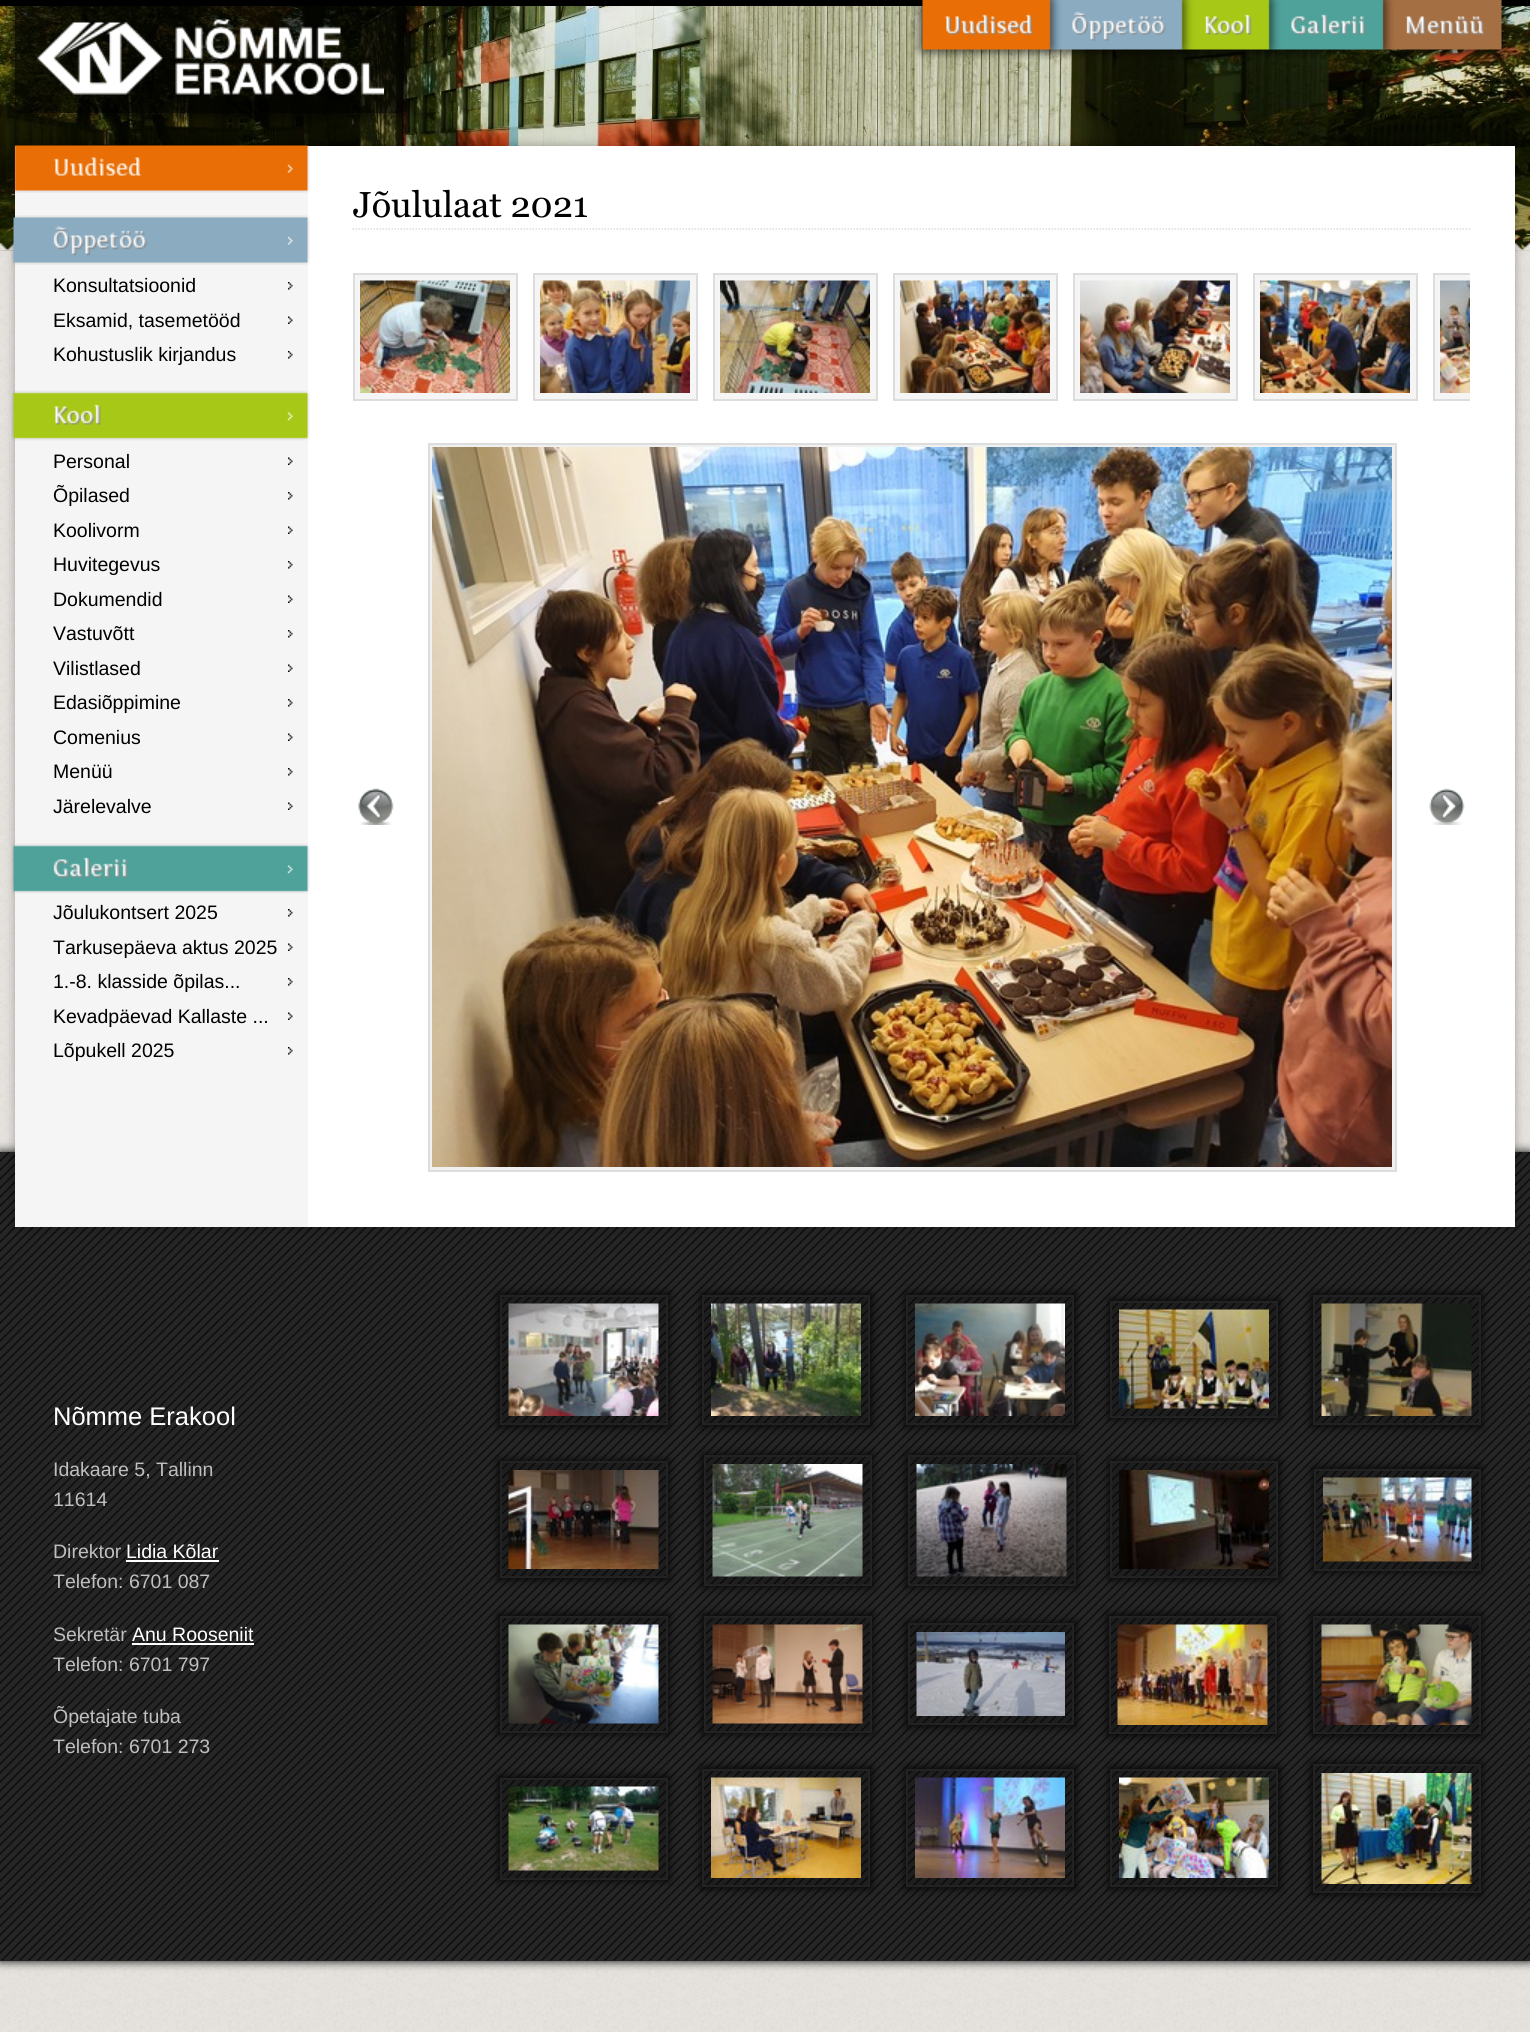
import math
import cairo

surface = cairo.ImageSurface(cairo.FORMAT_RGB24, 1530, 2032)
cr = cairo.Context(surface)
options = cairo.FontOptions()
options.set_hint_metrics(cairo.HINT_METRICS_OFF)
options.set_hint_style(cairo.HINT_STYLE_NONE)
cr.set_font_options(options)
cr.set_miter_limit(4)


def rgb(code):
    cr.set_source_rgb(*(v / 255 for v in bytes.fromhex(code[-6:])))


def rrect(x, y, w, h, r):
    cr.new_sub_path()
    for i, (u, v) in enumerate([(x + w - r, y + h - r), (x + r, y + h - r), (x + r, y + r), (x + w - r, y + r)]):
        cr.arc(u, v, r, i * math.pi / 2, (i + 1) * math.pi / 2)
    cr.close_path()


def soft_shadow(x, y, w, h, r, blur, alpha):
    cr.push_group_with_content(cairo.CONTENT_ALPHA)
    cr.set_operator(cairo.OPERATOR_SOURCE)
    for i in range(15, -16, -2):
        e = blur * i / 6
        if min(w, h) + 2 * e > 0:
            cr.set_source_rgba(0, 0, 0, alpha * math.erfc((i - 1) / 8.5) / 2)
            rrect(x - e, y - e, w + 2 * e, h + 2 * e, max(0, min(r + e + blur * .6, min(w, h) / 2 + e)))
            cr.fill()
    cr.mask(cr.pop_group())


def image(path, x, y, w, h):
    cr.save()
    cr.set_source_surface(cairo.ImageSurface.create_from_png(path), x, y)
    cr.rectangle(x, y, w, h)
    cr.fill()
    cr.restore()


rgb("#ffffff")
cr.paint()
image("img/1.png", 0, 250, 1530, 1782)
rgb("#000000")
cr.rectangle(0, 0, 1530, 6)
cr.fill()
image("img/4.png", 0, 6, 1530, 245)
cr.save()
cr.set_fill_rule(cairo.FILL_RULE_EVEN_ODD)
cr.new_path()
cr.move_to(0, 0)
cr.line_to(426, 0)
cr.line_to(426, 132)
cr.line_to(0, 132)
cr.close_path()
cr.move_to(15, 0)
cr.line_to(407, 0)
cr.line_to(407, 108)
cr.curve_to(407, 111, 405, 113, 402, 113)
cr.line_to(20, 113)
cr.curve_to(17, 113, 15, 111, 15, 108)
cr.close_path()
cr.clip()
rgb("#000000")
soft_shadow(12, -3, 398, 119, 8, 5, 0.6)
cr.restore()
cr.set_source_rgba(0, 0, 0, 0.7)
cr.new_path()
cr.move_to(15, 0)
cr.line_to(407, 0)
cr.line_to(407, 108)
cr.curve_to(407, 111, 405, 113, 402, 113)
cr.line_to(20, 113)
cr.curve_to(17, 113, 15, 111, 15, 108)
cr.close_path()
cr.fill()
image("img/2.png", 37, 19, 347, 76)
image("img/3.png", 912, 0, 600, 60)
image("img/21.png", 0, 243, 1530, 8)
rgb("#000000")
soft_shadow(0, 1152, 1530, 809, 0, 5, 1)
rgb("#262626")
cr.rectangle(0, 1152, 1530, 809)
cr.fill()
image("img/22.png", 0, 1152, 1530, 809)
rgb("#000000")
soft_shadow(15, 146, 1500, 1081, 0, 5, 0.3)
rgb("#ffffff")
cr.rectangle(308, 146, 1207, 1081)
cr.fill()
cr.new_path()
cr.move_to(352.5, 229)
cr.line_to(1470, 229)
rgb("#dddddd")
cr.set_line_width(1.5)
cr.set_dash([1.5, 1.5])
cr.stroke()
rgb("#f5f5f5")
cr.rectangle(354, 274, 163, 126)
cr.fill_preserve()
rgb("#dddddd")
cr.set_line_width(2)
cr.set_dash([])
cr.stroke()
image("img/5.png", 360, 280, 150, 113)
rgb("#f5f5f5")
cr.rectangle(534, 274, 163, 126)
cr.fill_preserve()
rgb("#dddddd")
cr.stroke()
image("img/6.png", 540, 280, 150, 113)
rgb("#f5f5f5")
cr.rectangle(714, 274, 163, 126)
cr.fill_preserve()
rgb("#dddddd")
cr.stroke()
image("img/7.png", 720, 280, 150, 113)
rgb("#f5f5f5")
cr.rectangle(894, 274, 163, 126)
cr.fill_preserve()
rgb("#dddddd")
cr.stroke()
image("img/8.png", 900, 280, 150, 113)
rgb("#f5f5f5")
cr.rectangle(1074, 274, 163, 126)
cr.fill_preserve()
rgb("#dddddd")
cr.stroke()
image("img/9.png", 1080, 280, 150, 113)
rgb("#f5f5f5")
cr.rectangle(1254, 274, 163, 126)
cr.fill_preserve()
rgb("#dddddd")
cr.stroke()
image("img/10.png", 1260, 280, 150, 113)
rgb("#f5f5f5")
cr.rectangle(1435, 275, 35, 124)
cr.fill()
cr.save()
cr.rectangle(353, 273, 1117, 132)
cr.clip()
cr.rectangle(1434, 274, 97, 126)
rgb("#dddddd")
cr.stroke()
cr.restore()
image("img/11.png", 1440, 280, 30, 113)
rgb("#f0f0f0")
cr.rectangle(429, 444, 967, 727)
cr.fill_preserve()
rgb("#dddddd")
cr.stroke()
image("img/12.png", 358, 788, 36, 37)
image("img/13.png", 432, 447, 960, 720)
image("img/14.png", 1429, 788, 36, 37)
rgb("#f5f5f5")
cr.rectangle(15, 146, 293, 1081)
cr.fill()
image("img/15.png", 14, 145, 296, 48)
image("img/16.png", 11, 215, 299, 50)
image("img/17.png", 288, 282, 5, 8)
image("img/18.png", 288, 316, 5, 8)
image("img/17.png", 288, 351, 5, 8)
image("img/19.png", 11, 390, 299, 51)
image("img/18.png", 288, 457, 5, 8)
image("img/17.png", 288, 492, 5, 8)
image("img/18.png", 288, 526, 5, 8)
image("img/17.png", 288, 561, 5, 8)
image("img/18.png", 288, 595, 5, 8)
image("img/17.png", 288, 630, 5, 8)
image("img/18.png", 288, 664, 5, 8)
image("img/17.png", 288, 699, 5, 8)
image("img/18.png", 288, 733, 5, 8)
image("img/17.png", 288, 768, 5, 8)
image("img/18.png", 288, 802, 5, 8)
image("img/20.png", 11, 843, 299, 51)
image("img/17.png", 288, 909, 5, 8)
image("img/18.png", 288, 943, 5, 8)
image("img/17.png", 288, 978, 5, 8)
image("img/18.png", 288, 1012, 5, 8)
image("img/17.png", 288, 1047, 5, 8)
rgb("#ffffff")
cr.rectangle(126, 1560, 93, 2)
cr.fill()
cr.rectangle(132, 1643, 122, 2)
cr.fill()
cr.save()
cr.set_fill_rule(cairo.FILL_RULE_EVEN_ODD)
cr.new_path()
cr.move_to(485, 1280)
cr.line_to(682, 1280)
cr.line_to(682, 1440)
cr.line_to(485, 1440)
cr.close_path()
cr.move_to(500, 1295)
cr.line_to(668, 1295)
cr.line_to(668, 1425)
cr.line_to(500, 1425)
cr.close_path()
cr.clip()
rgb("#080808")
soft_shadow(498, 1293, 171, 134, 0, 4, 1)
cr.restore()
cr.set_source_rgba(0, 0, 0, 0.2)
cr.rectangle(501, 1296, 166, 128)
cr.fill_preserve()
rgb("#222222")
cr.stroke()
image("img/23.png", 508, 1303, 151, 113)
cr.save()
cr.set_fill_rule(cairo.FILL_RULE_EVEN_ODD)
cr.new_path()
cr.move_to(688, 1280)
cr.line_to(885, 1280)
cr.line_to(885, 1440)
cr.line_to(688, 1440)
cr.close_path()
cr.move_to(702, 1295)
cr.line_to(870, 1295)
cr.line_to(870, 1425)
cr.line_to(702, 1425)
cr.close_path()
cr.clip()
rgb("#080808")
soft_shadow(701, 1293, 171, 134, 0, 4, 1)
cr.restore()
cr.set_source_rgba(0, 0, 0, 0.2)
cr.rectangle(703, 1296, 166, 128)
cr.fill_preserve()
rgb("#222222")
cr.stroke()
image("img/24.png", 711, 1303, 150, 113)
cr.save()
cr.set_fill_rule(cairo.FILL_RULE_EVEN_ODD)
cr.new_path()
cr.move_to(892, 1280)
cr.line_to(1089, 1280)
cr.line_to(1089, 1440)
cr.line_to(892, 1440)
cr.close_path()
cr.move_to(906, 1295)
cr.line_to(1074, 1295)
cr.line_to(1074, 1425)
cr.line_to(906, 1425)
cr.close_path()
cr.clip()
rgb("#080808")
soft_shadow(905, 1293, 171, 134, 0, 4, 1)
cr.restore()
cr.set_source_rgba(0, 0, 0, 0.2)
cr.rectangle(907, 1296, 166, 128)
cr.fill_preserve()
rgb("#222222")
cr.stroke()
image("img/25.png", 915, 1303, 150, 113)
cr.save()
cr.set_fill_rule(cairo.FILL_RULE_EVEN_ODD)
cr.new_path()
cr.move_to(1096, 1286)
cr.line_to(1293, 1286)
cr.line_to(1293, 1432)
cr.line_to(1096, 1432)
cr.close_path()
cr.move_to(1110, 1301)
cr.line_to(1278, 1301)
cr.line_to(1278, 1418)
cr.line_to(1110, 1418)
cr.close_path()
cr.clip()
rgb("#080808")
soft_shadow(1109, 1299, 171, 120, 0, 4, 1)
cr.restore()
cr.set_source_rgba(0, 0, 0, 0.2)
cr.rectangle(1111, 1302, 166, 115)
cr.fill_preserve()
rgb("#222222")
cr.stroke()
image("img/26.png", 1119, 1309, 150, 100)
cr.save()
cr.set_fill_rule(cairo.FILL_RULE_EVEN_ODD)
cr.new_path()
cr.move_to(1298, 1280)
cr.line_to(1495, 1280)
cr.line_to(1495, 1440)
cr.line_to(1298, 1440)
cr.close_path()
cr.move_to(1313, 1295)
cr.line_to(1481, 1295)
cr.line_to(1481, 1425)
cr.line_to(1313, 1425)
cr.close_path()
cr.clip()
rgb("#080808")
soft_shadow(1311, 1293, 171, 134, 0, 4, 1)
cr.restore()
cr.set_source_rgba(0, 0, 0, 0.2)
cr.rectangle(1314, 1296, 166, 128)
cr.fill_preserve()
rgb("#222222")
cr.stroke()
image("img/27.png", 1321, 1303, 151, 113)
cr.save()
cr.set_fill_rule(cairo.FILL_RULE_EVEN_ODD)
cr.new_path()
cr.move_to(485, 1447)
cr.line_to(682, 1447)
cr.line_to(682, 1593)
cr.line_to(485, 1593)
cr.close_path()
cr.move_to(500, 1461)
cr.line_to(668, 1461)
cr.line_to(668, 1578)
cr.line_to(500, 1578)
cr.close_path()
cr.clip()
rgb("#080808")
soft_shadow(498, 1460, 171, 120, 0, 4, 1)
cr.restore()
cr.set_source_rgba(0, 0, 0, 0.2)
cr.rectangle(501, 1462, 166, 115)
cr.fill_preserve()
rgb("#222222")
cr.stroke()
image("img/28.png", 508, 1470, 151, 99)
cr.save()
cr.set_fill_rule(cairo.FILL_RULE_EVEN_ODD)
cr.new_path()
cr.move_to(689, 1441)
cr.line_to(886, 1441)
cr.line_to(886, 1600)
cr.line_to(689, 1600)
cr.close_path()
cr.move_to(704, 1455)
cr.line_to(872, 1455)
cr.line_to(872, 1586)
cr.line_to(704, 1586)
cr.close_path()
cr.clip()
rgb("#080808")
soft_shadow(702, 1454, 171, 133, 0, 4, 1)
cr.restore()
cr.set_source_rgba(0, 0, 0, 0.2)
cr.rectangle(705, 1456, 166, 129)
cr.fill_preserve()
rgb("#222222")
cr.stroke()
image("img/29.png", 712, 1464, 151, 113)
cr.save()
cr.set_fill_rule(cairo.FILL_RULE_EVEN_ODD)
cr.new_path()
cr.move_to(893, 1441)
cr.line_to(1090, 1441)
cr.line_to(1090, 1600)
cr.line_to(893, 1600)
cr.close_path()
cr.move_to(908, 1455)
cr.line_to(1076, 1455)
cr.line_to(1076, 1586)
cr.line_to(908, 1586)
cr.close_path()
cr.clip()
rgb("#080808")
soft_shadow(906, 1454, 171, 133, 0, 4, 1)
cr.restore()
cr.set_source_rgba(0, 0, 0, 0.2)
cr.rectangle(909, 1456, 166, 129)
cr.fill_preserve()
rgb("#222222")
cr.stroke()
image("img/30.png", 916, 1464, 151, 113)
cr.save()
cr.set_fill_rule(cairo.FILL_RULE_EVEN_ODD)
cr.new_path()
cr.move_to(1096, 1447)
cr.line_to(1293, 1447)
cr.line_to(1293, 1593)
cr.line_to(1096, 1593)
cr.close_path()
cr.move_to(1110, 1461)
cr.line_to(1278, 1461)
cr.line_to(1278, 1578)
cr.line_to(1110, 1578)
cr.close_path()
cr.clip()
rgb("#080808")
soft_shadow(1109, 1460, 171, 120, 0, 4, 1)
cr.restore()
cr.set_source_rgba(0, 0, 0, 0.2)
cr.rectangle(1111, 1462, 166, 115)
cr.fill_preserve()
rgb("#222222")
cr.stroke()
image("img/31.png", 1119, 1470, 150, 99)
cr.save()
cr.set_fill_rule(cairo.FILL_RULE_EVEN_ODD)
cr.new_path()
cr.move_to(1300, 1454)
cr.line_to(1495, 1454)
cr.line_to(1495, 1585)
cr.line_to(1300, 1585)
cr.close_path()
cr.move_to(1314, 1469)
cr.line_to(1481, 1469)
cr.line_to(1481, 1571)
cr.line_to(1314, 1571)
cr.close_path()
cr.clip()
rgb("#080808")
soft_shadow(1313, 1467, 169, 105, 0, 4, 1)
cr.restore()
cr.set_source_rgba(0, 0, 0, 0.2)
cr.rectangle(1315, 1470, 165, 100)
cr.fill_preserve()
rgb("#222222")
cr.stroke()
image("img/32.png", 1323, 1477, 149, 85)
cr.save()
cr.set_fill_rule(cairo.FILL_RULE_EVEN_ODD)
cr.new_path()
cr.move_to(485, 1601)
cr.line_to(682, 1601)
cr.line_to(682, 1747)
cr.line_to(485, 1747)
cr.close_path()
cr.move_to(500, 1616)
cr.line_to(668, 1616)
cr.line_to(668, 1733)
cr.line_to(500, 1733)
cr.close_path()
cr.clip()
rgb("#080808")
soft_shadow(498, 1614, 171, 120, 0, 4, 1)
cr.restore()
cr.set_source_rgba(0, 0, 0, 0.2)
cr.rectangle(501, 1617, 166, 115)
cr.fill_preserve()
rgb("#222222")
cr.stroke()
image("img/33.png", 508, 1624, 151, 100)
cr.save()
cr.set_fill_rule(cairo.FILL_RULE_EVEN_ODD)
cr.new_path()
cr.move_to(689, 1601)
cr.line_to(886, 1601)
cr.line_to(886, 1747)
cr.line_to(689, 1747)
cr.close_path()
cr.move_to(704, 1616)
cr.line_to(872, 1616)
cr.line_to(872, 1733)
cr.line_to(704, 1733)
cr.close_path()
cr.clip()
rgb("#080808")
soft_shadow(702, 1614, 171, 120, 0, 4, 1)
cr.restore()
cr.set_source_rgba(0, 0, 0, 0.2)
cr.rectangle(705, 1617, 166, 115)
cr.fill_preserve()
rgb("#222222")
cr.stroke()
image("img/34.png", 712, 1624, 151, 100)
cr.save()
cr.set_fill_rule(cairo.FILL_RULE_EVEN_ODD)
cr.new_path()
cr.move_to(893, 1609)
cr.line_to(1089, 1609)
cr.line_to(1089, 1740)
cr.line_to(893, 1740)
cr.close_path()
cr.move_to(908, 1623)
cr.line_to(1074, 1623)
cr.line_to(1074, 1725)
cr.line_to(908, 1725)
cr.close_path()
cr.clip()
rgb("#080808")
soft_shadow(906, 1622, 170, 105, 0, 4, 1)
cr.restore()
cr.set_source_rgba(0, 0, 0, 0.2)
cr.rectangle(909, 1624, 164, 100)
cr.fill_preserve()
rgb("#222222")
cr.stroke()
image("img/35.png", 916, 1632, 149, 84)
cr.save()
cr.set_fill_rule(cairo.FILL_RULE_EVEN_ODD)
cr.new_path()
cr.move_to(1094, 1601)
cr.line_to(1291, 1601)
cr.line_to(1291, 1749)
cr.line_to(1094, 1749)
cr.close_path()
cr.move_to(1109, 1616)
cr.line_to(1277, 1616)
cr.line_to(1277, 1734)
cr.line_to(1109, 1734)
cr.close_path()
cr.clip()
rgb("#080808")
soft_shadow(1107, 1614, 171, 122, 0, 4, 1)
cr.restore()
cr.set_source_rgba(0, 0, 0, 0.2)
cr.rectangle(1110, 1617, 166, 116)
cr.fill_preserve()
rgb("#222222")
cr.stroke()
image("img/36.png", 1117, 1624, 151, 101)
cr.save()
cr.set_fill_rule(cairo.FILL_RULE_EVEN_ODD)
cr.new_path()
cr.move_to(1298, 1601)
cr.line_to(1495, 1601)
cr.line_to(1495, 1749)
cr.line_to(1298, 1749)
cr.close_path()
cr.move_to(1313, 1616)
cr.line_to(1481, 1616)
cr.line_to(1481, 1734)
cr.line_to(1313, 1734)
cr.close_path()
cr.clip()
rgb("#080808")
soft_shadow(1311, 1614, 171, 122, 0, 4, 1)
cr.restore()
cr.set_source_rgba(0, 0, 0, 0.2)
cr.rectangle(1314, 1617, 166, 116)
cr.fill_preserve()
rgb("#222222")
cr.stroke()
image("img/37.png", 1321, 1624, 151, 101)
cr.save()
cr.set_fill_rule(cairo.FILL_RULE_EVEN_ODD)
cr.new_path()
cr.move_to(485, 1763)
cr.line_to(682, 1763)
cr.line_to(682, 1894)
cr.line_to(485, 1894)
cr.close_path()
cr.move_to(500, 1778)
cr.line_to(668, 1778)
cr.line_to(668, 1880)
cr.line_to(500, 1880)
cr.close_path()
cr.clip()
rgb("#080808")
soft_shadow(498, 1776, 171, 105, 0, 4, 1)
cr.restore()
cr.set_source_rgba(0, 0, 0, 0.2)
cr.rectangle(501, 1779, 166, 100)
cr.fill_preserve()
rgb("#222222")
cr.stroke()
image("img/38.png", 508, 1786, 151, 85)
cr.save()
cr.set_fill_rule(cairo.FILL_RULE_EVEN_ODD)
cr.new_path()
cr.move_to(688, 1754)
cr.line_to(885, 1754)
cr.line_to(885, 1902)
cr.line_to(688, 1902)
cr.close_path()
cr.move_to(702, 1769)
cr.line_to(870, 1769)
cr.line_to(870, 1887)
cr.line_to(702, 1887)
cr.close_path()
cr.clip()
rgb("#080808")
soft_shadow(701, 1767, 171, 122, 0, 4, 1)
cr.restore()
cr.set_source_rgba(0, 0, 0, 0.2)
cr.rectangle(703, 1770, 166, 116)
cr.fill_preserve()
rgb("#222222")
cr.stroke()
image("img/39.png", 711, 1777, 150, 101)
cr.save()
cr.set_fill_rule(cairo.FILL_RULE_EVEN_ODD)
cr.new_path()
cr.move_to(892, 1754)
cr.line_to(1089, 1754)
cr.line_to(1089, 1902)
cr.line_to(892, 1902)
cr.close_path()
cr.move_to(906, 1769)
cr.line_to(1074, 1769)
cr.line_to(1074, 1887)
cr.line_to(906, 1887)
cr.close_path()
cr.clip()
rgb("#080808")
soft_shadow(905, 1767, 171, 122, 0, 4, 1)
cr.restore()
cr.set_source_rgba(0, 0, 0, 0.2)
cr.rectangle(907, 1770, 166, 116)
cr.fill_preserve()
rgb("#222222")
cr.stroke()
image("img/40.png", 915, 1777, 150, 101)
cr.save()
cr.set_fill_rule(cairo.FILL_RULE_EVEN_ODD)
cr.new_path()
cr.move_to(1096, 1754)
cr.line_to(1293, 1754)
cr.line_to(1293, 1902)
cr.line_to(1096, 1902)
cr.close_path()
cr.move_to(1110, 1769)
cr.line_to(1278, 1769)
cr.line_to(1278, 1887)
cr.line_to(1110, 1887)
cr.close_path()
cr.clip()
rgb("#080808")
soft_shadow(1109, 1767, 171, 122, 0, 4, 1)
cr.restore()
cr.set_source_rgba(0, 0, 0, 0.2)
cr.rectangle(1111, 1770, 166, 116)
cr.fill_preserve()
rgb("#222222")
cr.stroke()
image("img/41.png", 1119, 1777, 150, 101)
cr.save()
cr.set_fill_rule(cairo.FILL_RULE_EVEN_ODD)
cr.new_path()
cr.move_to(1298, 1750)
cr.line_to(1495, 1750)
cr.line_to(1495, 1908)
cr.line_to(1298, 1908)
cr.close_path()
cr.move_to(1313, 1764)
cr.line_to(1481, 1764)
cr.line_to(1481, 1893)
cr.line_to(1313, 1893)
cr.close_path()
cr.clip()
rgb("#080808")
soft_shadow(1311, 1763, 171, 132, 0, 4, 1)
cr.restore()
cr.set_source_rgba(0, 0, 0, 0.2)
cr.rectangle(1314, 1765, 166, 127)
cr.fill_preserve()
rgb("#222222")
cr.stroke()
image("img/42.png", 1321, 1773, 151, 111)
cr.select_font_face("Georgia")
cr.set_font_size(36)
rgb("#000000")
cr.move_to(353, 217)
cr.show_text("Jõululaat 2021")
cr.select_font_face("Liberation Sans")
cr.set_font_size(19.5)
for x, y, s in [
    (53, 292, "Konsultatsioonid"),
    (53, 327, "Eksamid, tasemetööd"),
    (53, 361, "Kohustuslik kirjandus"),
    (53, 468, "Personal"),
    (53, 502, "Õpilased"),
    (53, 537, "Koolivorm"),
    (53, 571, "Huvitegevus"),
    (53, 606, "Dokumendid"),
    (53, 640, "Vastuvõtt"),
    (53, 675, "Vilistlased"),
    (53, 709, "Edasiõppimine"),
    (53, 744, "Comenius"),
    (53, 778, "Menüü"),
    (53, 813, "Järelevalve"),
    (53, 919, "Jõulukontsert 2025"),
    (53, 954, "Tarkusepäeva aktus 2025"),
    (53, 988, "1.-8. klasside õpilas..."),
    (53, 1023, "Kevadpäevad Kallaste ..."),
    (53, 1057, "Lõpukell 2025"),
]:
    cr.move_to(x, y)
    cr.show_text(s)
cr.set_font_size(25.5)
rgb("#ffffff")
cr.move_to(53, 1425)
cr.show_text("Nõmme Erakool")
cr.set_font_size(19.5)
rgb("#bfbfbf")
for x, y, s in [
    (53, 1476, "Idakaare 5, Tallinn"),
    (53, 1506, "11614"),
    (53, 1558, "Direktor"),
]:
    cr.move_to(x, y)
    cr.show_text(s)
rgb("#ffffff")
cr.move_to(126, 1558)
cr.show_text("Lidia Kõlar")
rgb("#bfbfbf")
cr.move_to(53, 1588)
cr.show_text("Telefon: 6701 087")
cr.move_to(53, 1641)
cr.show_text("Sekretär")
rgb("#ffffff")
cr.move_to(132, 1641)
cr.show_text("Anu Rooseniit")
rgb("#bfbfbf")
for x, y, s in [
    (53, 1671, "Telefon: 6701 797"),
    (53, 1723, "Õpetajate tuba"),
    (53, 1753, "Telefon: 6701 273"),
]:
    cr.move_to(x, y)
    cr.show_text(s)
surface.write_to_png("page.png")
